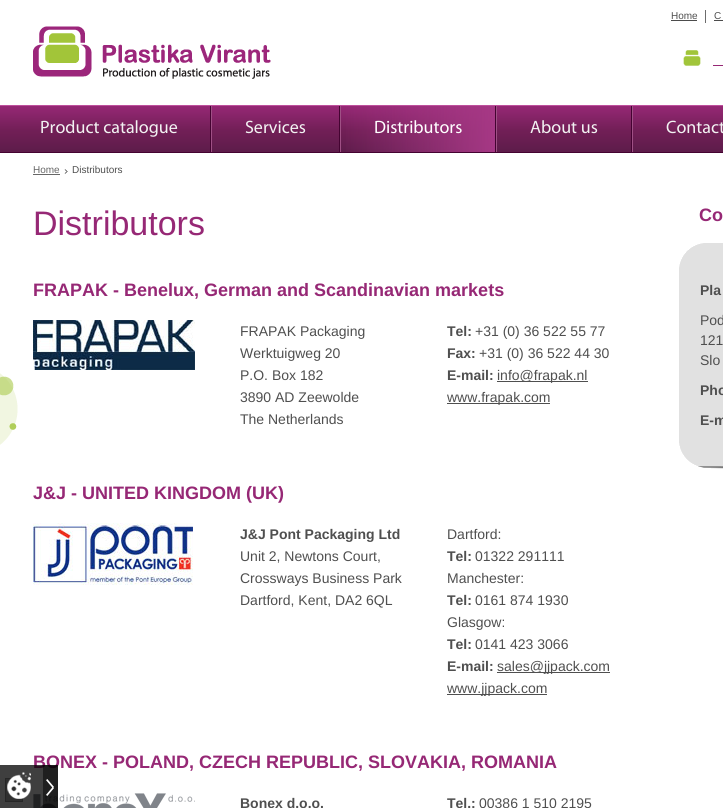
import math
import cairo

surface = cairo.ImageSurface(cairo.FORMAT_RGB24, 723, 808)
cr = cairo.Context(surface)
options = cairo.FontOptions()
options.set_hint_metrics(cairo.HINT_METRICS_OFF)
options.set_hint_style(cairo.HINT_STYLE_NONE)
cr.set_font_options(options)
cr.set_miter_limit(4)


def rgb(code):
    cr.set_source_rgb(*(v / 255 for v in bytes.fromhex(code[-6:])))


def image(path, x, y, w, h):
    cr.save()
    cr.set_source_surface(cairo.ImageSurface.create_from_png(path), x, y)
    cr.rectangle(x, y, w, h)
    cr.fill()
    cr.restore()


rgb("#ffffff")
cr.paint()
for x, y, w, h, color in [
    (705, 10, 1, 13, "#6c6c6c"),
    (671, 20, 26, 1, "#4c4c4c"),
    (714, 20, 9, 1, "#4c4c4c"),
]:
    rgb(color)
    cr.rectangle(x, y, w, h)
    cr.fill()
image("img/3.png", 683, 50, 18, 16)
rgb("#962875")
cr.rectangle(713, 65, 10, 1)
cr.fill()
image("img/4.png", 33, 26, 238, 53)
gradient = cairo.LinearGradient(487, 106, 487, 152)
gradient.add_color_stop_rgba(0, 0.588, 0.157, 0.459, 1)
gradient.add_color_stop_rgba(0.52, 0.447, 0.122, 0.341, 1)
gradient.add_color_stop_rgba(1, 0.365, 0.11, 0.29, 1)
cr.set_source(gradient)
cr.rectangle(0, 106, 723, 46)
cr.fill()
for x, y, w, h, color in [
    (0, 105, 723, 1, "#be509d"),
    (0, 152, 723, 1, "#440331"),
    (210, 106, 1, 46, "#440331"),
    (339, 106, 1, 46, "#440331"),
    (211, 106, 1, 46, "#9f5085"),
]:
    rgb(color)
    cr.rectangle(x, y, w, h)
    cr.fill()
gradient = cairo.LinearGradient(341, 129, 495, 129)
gradient.add_color_stop_rgba(0, 0.651, 0.22, 0.522, 0)
gradient.add_color_stop_rgba(1, 0.651, 0.22, 0.522, 1)
cr.set_source(gradient)
cr.rectangle(346, 106, 149, 46)
cr.fill()
for x, y, w, h, color in [
    (495, 106, 1, 46, "#440331"),
    (340, 106, 1, 46, "#9f5085"),
    (631, 106, 1, 46, "#440331"),
    (496, 106, 1, 46, "#9f5085"),
    (632, 106, 1, 46, "#9f5085"),
]:
    rgb(color)
    cr.rectangle(x, y, w, h)
    cr.fill()
image("img/5.png", 0, 373, 18, 72)
image("img/6.png", 64, 169, 4, 5)
rgb("#676767")
cr.rectangle(33, 174, 27, 1)
cr.fill()
image("img/7.png", 33, 320, 162, 50)
rgb("#4f4f4f")
cr.rectangle(497, 381, 91, 1)
cr.fill()
cr.rectangle(447, 403, 103, 1)
cr.fill()
image("img/8.png", 33, 523, 160, 62)
cr.rectangle(497, 672, 113, 1)
cr.fill()
cr.rectangle(447, 694, 100, 1)
cr.fill()
image("img/9.png", 33, 793, 162, 15)
image("img/10.png", 679, 441, 44, 28)
image("img/11.png", 679, 243, 44, 198)
rgb("#bfbfbf")
cr.rectangle(5.5, 778.5, 17, 23)
cr.fill_preserve()
rgb("#999999")
cr.set_line_width(1)
cr.stroke()
cr.select_font_face("Liberation Sans")
cr.set_font_size(10)
rgb("#4f4f4f")
cr.move_to(671, 19)
cr.show_text("Home")
cr.move_to(714, 19)
cr.show_text("C")
cr.select_font_face("Myriad")
cr.set_font_size(18)
rgb("#f2f2f2")
cr.move_to(40, 133)
cr.show_text("Product catalogue")
cr.move_to(245, 133)
cr.show_text("Services")
rgb("#ffffff")
cr.move_to(374, 133)
cr.show_text("Distributors")
rgb("#f2f2f2")
cr.move_to(530, 133)
cr.show_text("About us")
cr.move_to(666, 133)
cr.show_text("Contact")
cr.select_font_face("Liberation Sans")
cr.set_font_size(10)
rgb("#676767")
cr.move_to(33, 173)
cr.show_text("Home")
rgb("#4f4f4f")
cr.move_to(72, 173)
cr.show_text("Distributors")
cr.set_font_size(34)
rgb("#962875")
cr.move_to(33, 235)
cr.show_text("Distributors")
cr.select_font_face("Liberation Sans", cairo.FONT_SLANT_NORMAL, cairo.FONT_WEIGHT_BOLD)
cr.set_font_size(18)
cr.move_to(33, 296)
cr.show_text("FRAPAK - Benelux, German and Scandinavian markets")
cr.select_font_face("Liberation Sans")
cr.set_font_size(14)
rgb("#4f4f4f")
for x, y, s in [
    (240, 336, "FRAPAK Packaging"),
    (240, 358, "Werktuigweg 20"),
    (240, 380, "P.O. Box 182"),
    (240, 402, "3890 AD Zeewolde"),
    (240, 424, "The Netherlands"),
]:
    cr.move_to(x, y)
    cr.show_text(s)
cr.select_font_face("Liberation Sans", cairo.FONT_SLANT_NORMAL, cairo.FONT_WEIGHT_BOLD)
cr.move_to(447, 336)
cr.show_text("Tel:")
cr.select_font_face("Liberation Sans")
cr.move_to(475, 336)
cr.show_text("+31 (0) 36 522 55 77")
cr.select_font_face("Liberation Sans", cairo.FONT_SLANT_NORMAL, cairo.FONT_WEIGHT_BOLD)
cr.move_to(447, 358)
cr.show_text("Fax:")
cr.select_font_face("Liberation Sans")
cr.move_to(479, 358)
cr.show_text("+31 (0) 36 522 44 30")
cr.select_font_face("Liberation Sans", cairo.FONT_SLANT_NORMAL, cairo.FONT_WEIGHT_BOLD)
cr.move_to(447, 380)
cr.show_text("E-mail:")
cr.select_font_face("Liberation Sans")
cr.move_to(497, 380)
cr.show_text("info@frapak.nl")
cr.move_to(447, 402)
cr.show_text("www.frapak.com")
cr.select_font_face("Liberation Sans", cairo.FONT_SLANT_NORMAL, cairo.FONT_WEIGHT_BOLD)
cr.set_font_size(18)
rgb("#962875")
cr.move_to(33, 499)
cr.show_text("J&J - UNITED KINGDOM (UK)")
cr.set_font_size(14)
rgb("#4f4f4f")
cr.move_to(240, 539)
cr.show_text("J&J Pont Packaging Ltd")
cr.select_font_face("Liberation Sans")
for x, y, s in [
    (240, 561, "Unit 2, Newtons Court,"),
    (240, 583, "Crossways Business Park"),
    (240, 605, "Dartford, Kent, DA2 6QL"),
    (447, 539, "Dartford:"),
]:
    cr.move_to(x, y)
    cr.show_text(s)
cr.select_font_face("Liberation Sans", cairo.FONT_SLANT_NORMAL, cairo.FONT_WEIGHT_BOLD)
cr.move_to(447, 561)
cr.show_text("Tel:")
cr.select_font_face("Liberation Sans")
cr.move_to(475, 561)
cr.show_text("01322 291111")
cr.move_to(447, 583)
cr.show_text("Manchester:")
cr.select_font_face("Liberation Sans", cairo.FONT_SLANT_NORMAL, cairo.FONT_WEIGHT_BOLD)
cr.move_to(447, 605)
cr.show_text("Tel:")
cr.select_font_face("Liberation Sans")
cr.move_to(475, 605)
cr.show_text("0161 874 1930")
cr.move_to(447, 627)
cr.show_text("Glasgow:")
cr.select_font_face("Liberation Sans", cairo.FONT_SLANT_NORMAL, cairo.FONT_WEIGHT_BOLD)
cr.move_to(447, 649)
cr.show_text("Tel:")
cr.select_font_face("Liberation Sans")
cr.move_to(475, 649)
cr.show_text("0141 423 3066")
cr.select_font_face("Liberation Sans", cairo.FONT_SLANT_NORMAL, cairo.FONT_WEIGHT_BOLD)
cr.move_to(447, 671)
cr.show_text("E-mail:")
cr.select_font_face("Liberation Sans")
cr.move_to(497, 671)
cr.show_text("sales@jjpack.com")
cr.move_to(447, 693)
cr.show_text("www.jjpack.com")
cr.select_font_face("Liberation Sans", cairo.FONT_SLANT_NORMAL, cairo.FONT_WEIGHT_BOLD)
cr.set_font_size(18)
rgb("#962875")
cr.move_to(33, 768)
cr.show_text("BONEX - POLAND, CZECH REPUBLIC, SLOVAKIA, ROMANIA")
cr.set_source_rgba(0, 0, 0, 0.5)
cr.rectangle(0, 765, 58, 43)
cr.fill()
cr.rectangle(0, 765, 58, 43)
cr.fill()
cr.rectangle(43, 765, 15, 43)
cr.fill()
image("img/2.png", 46, 779, 8, 17)
image("img/1.png", 7, 772, 24, 27)
cr.set_font_size(14)
rgb("#4f4f4f")
cr.move_to(240, 808)
cr.show_text("Bonex d.o.o.")
cr.move_to(447, 808)
cr.show_text("Tel.:")
cr.select_font_face("Liberation Sans")
cr.move_to(479, 808)
cr.show_text("00386 1 510 2195")
cr.select_font_face("Liberation Sans", cairo.FONT_SLANT_NORMAL, cairo.FONT_WEIGHT_BOLD)
cr.set_font_size(18)
rgb("#962875")
cr.move_to(699, 221)
cr.show_text("Co")
cr.set_font_size(14)
rgb("#4f4f4f")
cr.move_to(700, 295)
cr.show_text("Pla")
cr.select_font_face("Liberation Sans")
for x, y, s in [
    (700, 325, "Pod"),
    (700, 345, "121"),
    (700, 365, "Slo"),
]:
    cr.move_to(x, y)
    cr.show_text(s)
cr.select_font_face("Liberation Sans", cairo.FONT_SLANT_NORMAL, cairo.FONT_WEIGHT_BOLD)
cr.move_to(700, 395)
cr.show_text("Pho")
cr.move_to(700, 425)
cr.show_text("E-m")
surface.write_to_png("page.png")
